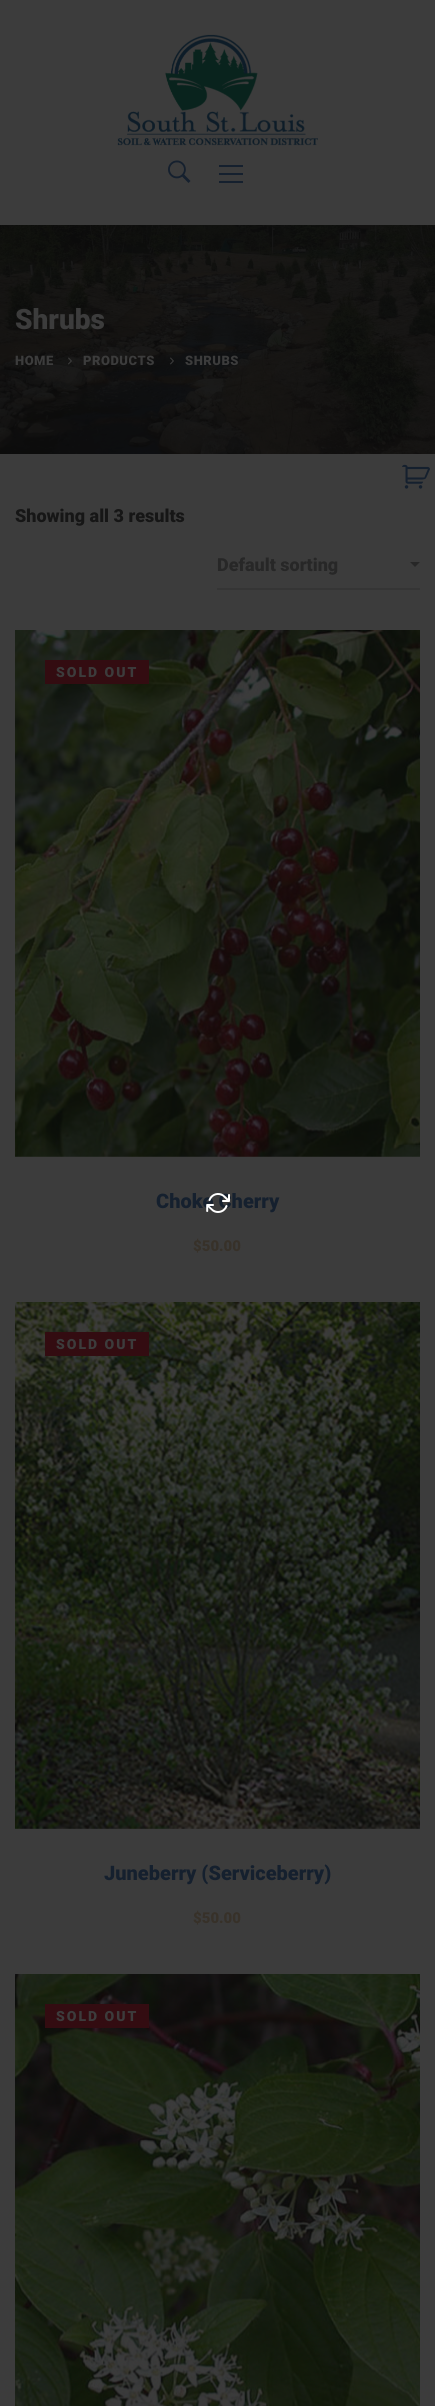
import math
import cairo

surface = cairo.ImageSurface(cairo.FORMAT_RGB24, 435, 2406)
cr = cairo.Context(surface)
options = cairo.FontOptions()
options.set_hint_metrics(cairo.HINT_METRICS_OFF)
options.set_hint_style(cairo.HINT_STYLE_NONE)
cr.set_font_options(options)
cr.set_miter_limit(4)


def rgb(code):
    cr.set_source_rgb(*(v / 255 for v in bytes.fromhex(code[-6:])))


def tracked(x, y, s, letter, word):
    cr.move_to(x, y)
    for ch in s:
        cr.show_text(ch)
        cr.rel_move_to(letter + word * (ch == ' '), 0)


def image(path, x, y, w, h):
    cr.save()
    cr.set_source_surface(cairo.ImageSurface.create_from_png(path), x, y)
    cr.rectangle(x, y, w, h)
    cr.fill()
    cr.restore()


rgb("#3c3c3c")
cr.paint()
image("img/1.png", 117, 34, 201, 112)
image("img/2.png", 168, 160, 23, 23)
for x, y, w, h, color in [
    (219, 173, 24, 2, "#15202e"),
    (219, 165, 24, 2, "#15202e"),
    (219, 181, 24, 2, "#15202e"),
]:
    rgb(color)
    cr.rectangle(x, y, w, h)
    cr.fill()
image("img/3.png", 0, 225, 435, 229)
image("img/4.png", 68, 357, 4, 8)
image("img/5.png", 170, 357, 4, 8)
image("img/6.png", 402, 464, 28, 25)
image("img/7.png", 410, 562, 10, 5)
rgb("#353535")
cr.rectangle(217, 588, 203, 2)
cr.fill()
image("img/8.png", 15, 630, 405, 527)
rgb("#330c11")
cr.rectangle(45, 660, 104, 24)
cr.fill()
image("img/9.png", 15, 1302, 405, 527)
cr.rectangle(45, 1332, 104, 24)
cr.fill()
image("img/10.png", 15, 1974, 405, 432)
cr.rectangle(45, 2004, 104, 24)
cr.fill()
cr.select_font_face("Roboto Black")
cr.set_font_size(28)
rgb("#3c3c3c")
cr.move_to(15, 329)
cr.show_text("Shrubs")
cr.set_font_size(13)
for x, y, s in [
    (15, 365, "HOME"),
    (83, 365, "PRODUCTS"),
    (185, 365, "SHRUBS"),
]:
    tracked(x, y, s, 0.5, 0)
cr.set_font_size(18)
rgb("#161616")
cr.move_to(15, 522)
cr.show_text("Showing all 3 results")
rgb("#272727")
cr.move_to(217, 571)
cr.show_text("Default sorting")
cr.set_font_size(14)
rgb("#3c3c3c")
tracked(56, 677, "SOLD OUT", 2, 0)
cr.set_font_size(20)
rgb("#15202e")
cr.move_to(156, 1208)
cr.show_text("Choke Cherry")
cr.set_font_size(15)
rgb("#373129")
cr.move_to(193, 1251)
cr.show_text("$50.00")
cr.set_font_size(14)
rgb("#3c3c3c")
tracked(56, 1349, "SOLD OUT", 2, 0)
cr.set_font_size(20)
rgb("#15202e")
cr.move_to(104, 1880)
cr.show_text("Juneberry (Serviceberry)")
cr.set_font_size(15)
rgb("#373129")
cr.move_to(193, 1923)
cr.show_text("$50.00")
cr.set_font_size(14)
rgb("#3c3c3c")
tracked(56, 2021, "SOLD OUT", 2, 0)
image("img/11.png", 206, 1193, 24, 20)
surface.write_to_png("page.png")
